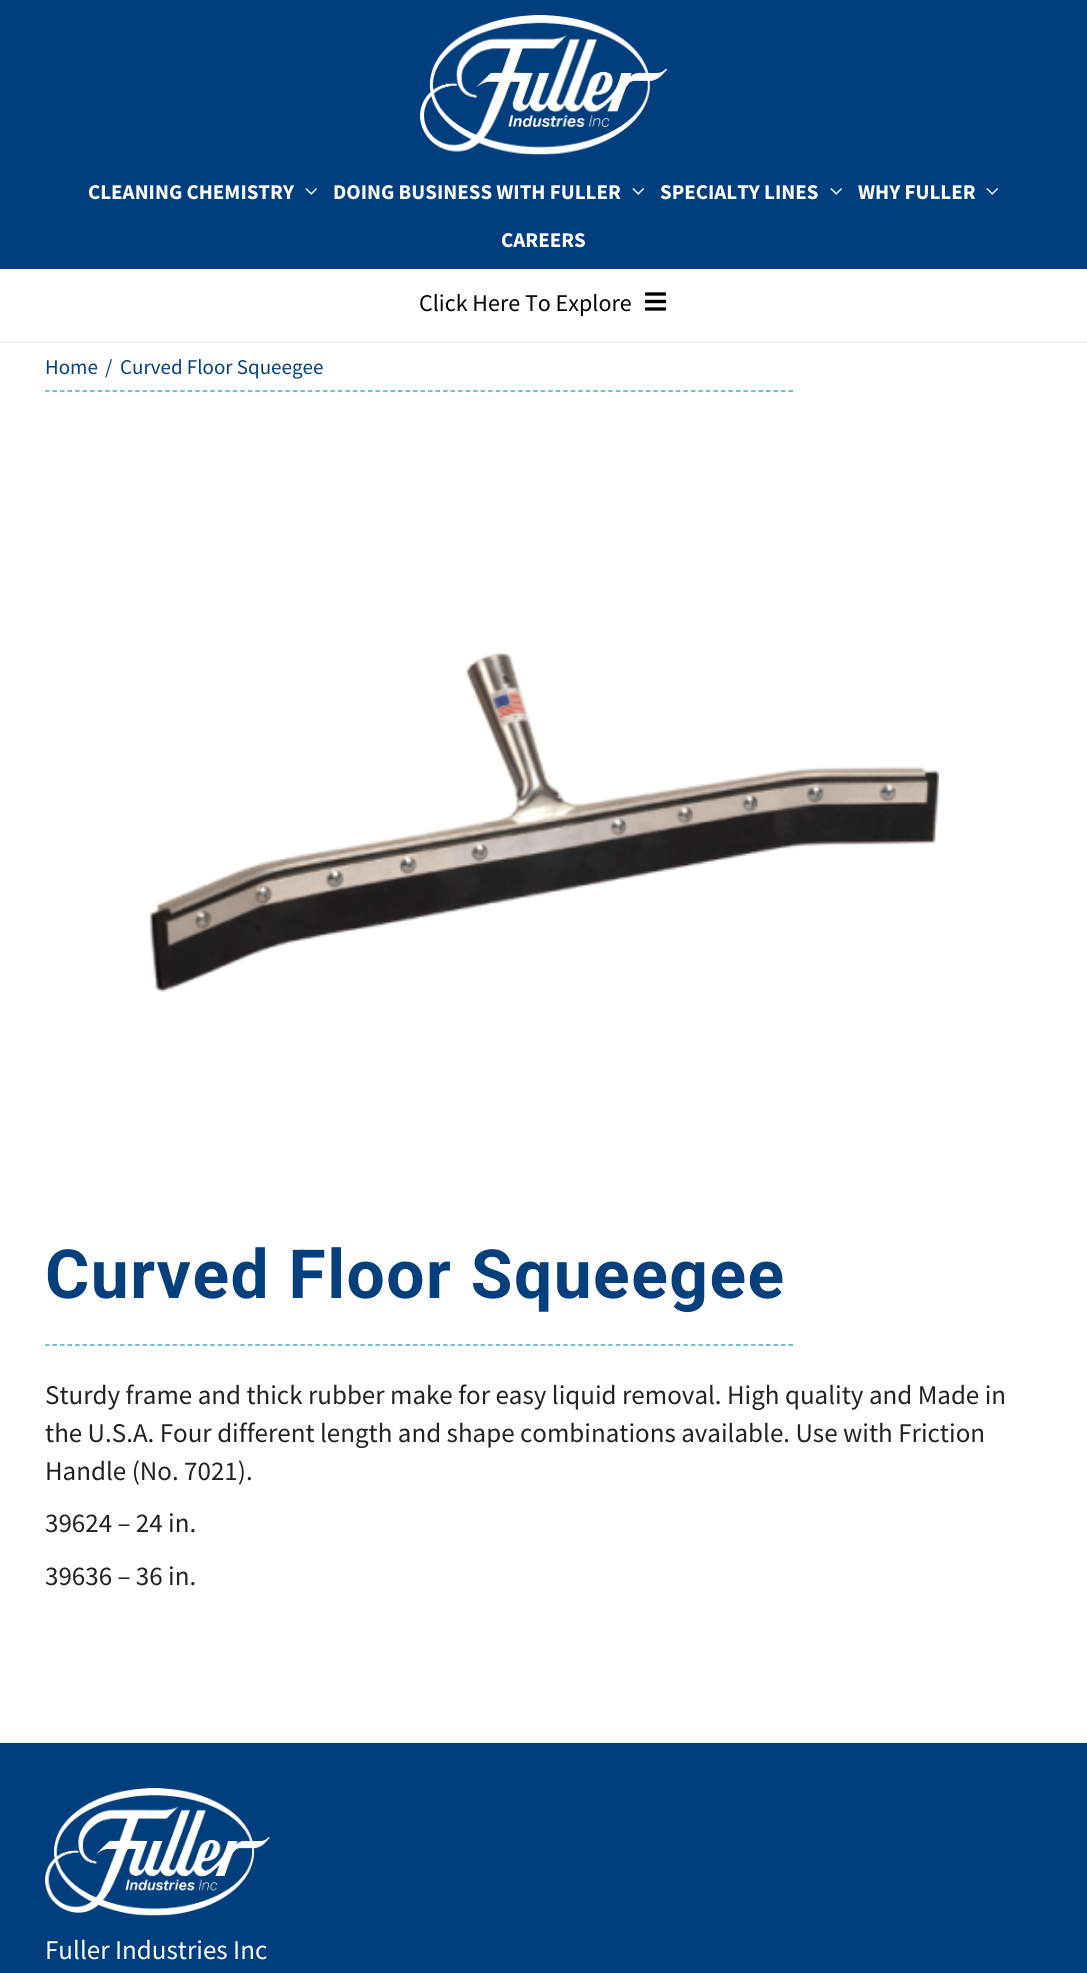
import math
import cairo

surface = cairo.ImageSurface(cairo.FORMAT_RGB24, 1087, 1973)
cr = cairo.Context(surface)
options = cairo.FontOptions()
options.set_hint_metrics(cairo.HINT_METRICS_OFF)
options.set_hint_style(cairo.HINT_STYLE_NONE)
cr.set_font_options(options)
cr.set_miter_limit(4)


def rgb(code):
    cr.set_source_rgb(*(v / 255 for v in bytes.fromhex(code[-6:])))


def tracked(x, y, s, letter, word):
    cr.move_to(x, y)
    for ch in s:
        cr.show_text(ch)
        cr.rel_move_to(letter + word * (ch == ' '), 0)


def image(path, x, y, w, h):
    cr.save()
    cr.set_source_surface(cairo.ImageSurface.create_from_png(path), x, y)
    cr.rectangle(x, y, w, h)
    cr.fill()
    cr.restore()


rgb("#ffffff")
cr.paint()
rgb("#003e7e")
cr.rectangle(0, 0, 1087, 269)
cr.fill()
image("img/1.png", 420, 15, 248, 140)
image("img/2.png", 305, 188, 12, 7)
image("img/2.png", 632, 188, 12, 7)
image("img/2.png", 830, 188, 12, 7)
image("img/2.png", 986, 188, 12, 7)
rgb("#f0f0f0")
cr.rectangle(0, 341, 1087, 2)
cr.fill()
image("img/3.png", 645, 292, 21, 19)
cr.new_path()
cr.move_to(45, 391)
cr.line_to(793.5, 391)
rgb("#47b1b1")
cr.set_line_width(1.5)
cr.set_dash([4.5, 3.01])
cr.stroke()
image("img/4.png", 150, 652, 789, 340)
cr.new_path()
cr.move_to(45, 1345)
cr.line_to(793.5, 1345)
cr.stroke()
rgb("#003e7e")
cr.rectangle(0, 1743, 1087, 230)
cr.fill()
image("img/5.png", 45, 1788, 225, 128)
cr.select_font_face("Source Sans Pro", cairo.FONT_SLANT_NORMAL, cairo.FONT_WEIGHT_BOLD)
cr.set_font_size(21)
rgb("#ffffff")
for x, y, s in [
    (88, 199, "CLEANING CHEMISTRY"),
    (333, 199, "DOING BUSINESS WITH FULLER"),
    (660, 199, "SPECIALTY LINES"),
    (858, 199, "WHY FULLER"),
    (501, 247, "CAREERS"),
]:
    cr.move_to(x, y)
    cr.show_text(s)
cr.select_font_face("Source Sans Pro")
cr.set_font_size(24)
rgb("#000000")
cr.move_to(419, 311)
cr.show_text("Click Here To Explore")
cr.set_font_size(21)
rgb("#06407c")
for x, y, s in [
    (45, 374, "Home"),
    (105, 374, "/"),
    (120, 374, "Curved Floor Squeegee"),
]:
    cr.move_to(x, y)
    cr.show_text(s)
cr.select_font_face("Roboto", cairo.FONT_SLANT_NORMAL, cairo.FONT_WEIGHT_BOLD)
cr.set_font_size(67.75)
tracked(45, 1298, "Curved Floor Squeegee", 1.5, 0)
cr.select_font_face("Source Sans Pro")
cr.set_font_size(27)
rgb("#222222")
for x, y, s in [
    (45, 1404, "Sturdy frame and thick rubber make for easy liquid removal. High quality and Made in"),
    (45, 1442, "the U.S.A. Four different length and shape combinations available. Use with Friction"),
    (45, 1480, "Handle (No. 7021)."),
    (45, 1532, "39624 – 24 in."),
    (45, 1585, "39636 – 36 in."),
]:
    cr.move_to(x, y)
    cr.show_text(s)
rgb("#ffffff")
cr.move_to(45, 1959)
cr.show_text("Fuller Industries Inc")
surface.write_to_png("page.png")
